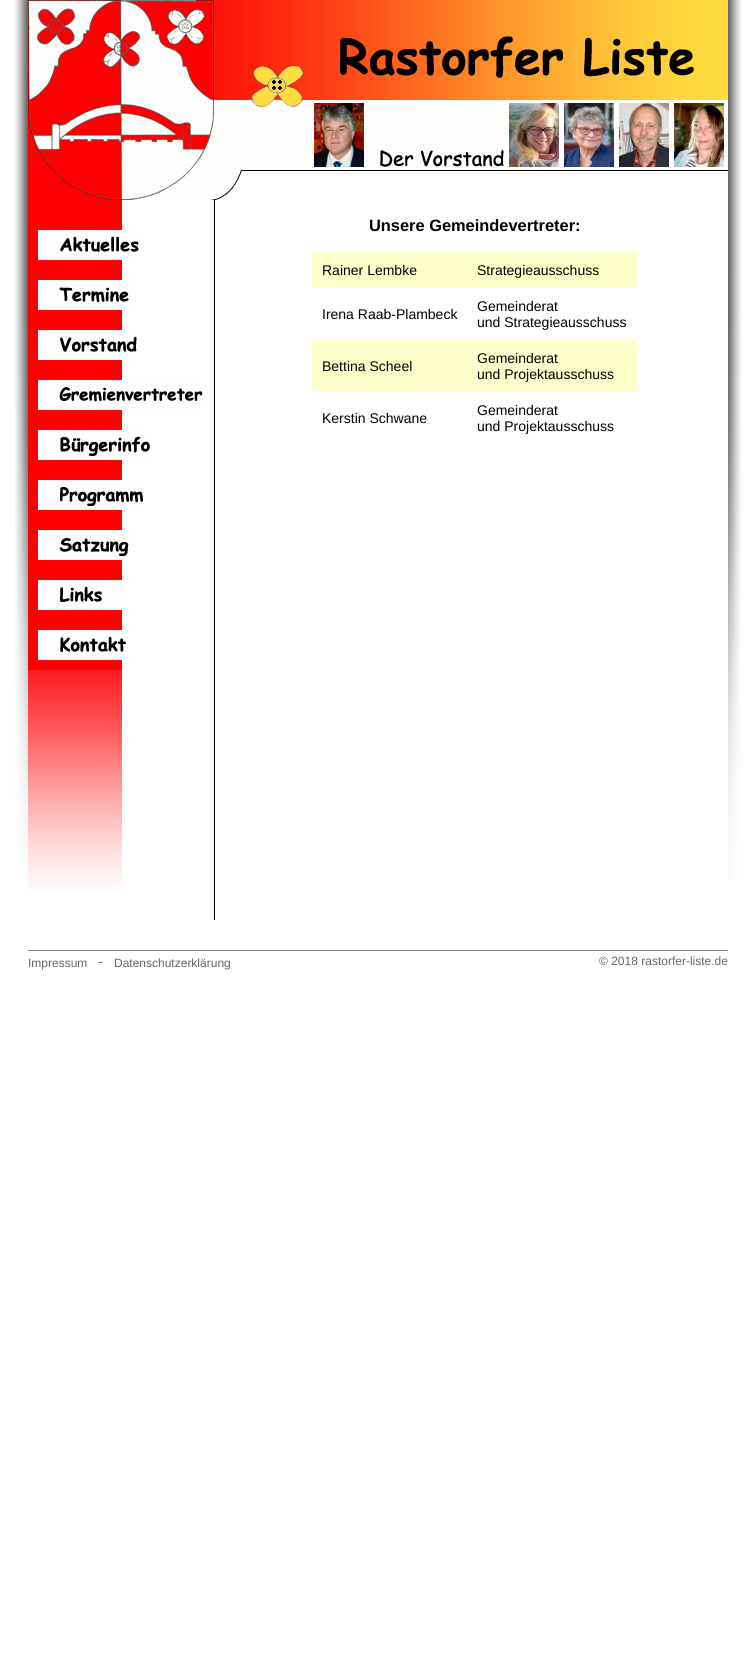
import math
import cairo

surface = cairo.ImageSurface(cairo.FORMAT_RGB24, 750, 1678)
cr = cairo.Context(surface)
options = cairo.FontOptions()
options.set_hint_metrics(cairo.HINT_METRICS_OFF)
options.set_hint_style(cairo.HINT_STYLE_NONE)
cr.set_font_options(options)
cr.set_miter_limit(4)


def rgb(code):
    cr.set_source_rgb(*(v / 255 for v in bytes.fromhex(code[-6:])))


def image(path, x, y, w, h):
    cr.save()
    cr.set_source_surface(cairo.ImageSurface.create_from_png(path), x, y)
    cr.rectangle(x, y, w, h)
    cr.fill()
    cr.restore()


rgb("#ffffff")
cr.paint()
image("img/1.png", 14, 0, 14, 880)
image("img/2.png", 28, 0, 186, 200)
image("img/3.png", 214, 0, 514, 171)
image("img/4.png", 314, 103, 50, 64)
image("img/5.png", 509, 103, 50, 64)
image("img/6.png", 564, 103, 50, 64)
image("img/7.png", 619, 103, 50, 64)
image("img/8.png", 674, 103, 50, 64)
image("img/9.png", 214, 171, 28, 29)
rgb("#fd0004")
cr.rectangle(28, 200, 94, 20)
cr.fill()
image("img/10.png", 28, 220, 111, 50)
image("img/11.png", 28, 270, 101, 50)
image("img/12.png", 28, 320, 109, 50)
image("img/13.png", 28, 370, 175, 50)
image("img/14.png", 28, 420, 122, 50)
image("img/15.png", 28, 470, 115, 50)
image("img/16.png", 28, 520, 101, 50)
image("img/17.png", 28, 570, 94, 50)
image("img/18.png", 28, 620, 98, 50)
image("img/19.png", 28, 670, 94, 221)
for x, y, w, h, color in [
    (214, 200, 1, 720, "#000000"),
    (312, 252, 325, 36, "#ffffcc"),
    (312, 340, 325, 52, "#ffffcc"),
    (28, 950, 700, 1, "#808080"),
]:
    rgb(color)
    cr.rectangle(x, y, w, h)
    cr.fill()
image("img/20.png", 728, 0, 14, 880)
cr.select_font_face("Liberation Sans", cairo.FONT_SLANT_NORMAL, cairo.FONT_WEIGHT_BOLD)
cr.set_font_size(16.4)
rgb("#000000")
cr.move_to(369, 231)
cr.show_text("Unsere Gemeindevertreter:")
cr.select_font_face("Liberation Sans")
cr.set_font_size(14)
for x, y, s in [
    (322, 275, "Rainer Lembke"),
    (477, 275, "Strategieausschuss"),
    (322, 319, "Irena Raab-Plambeck"),
    (477, 311, "Gemeinderat"),
    (477, 327, "und Strategieausschuss"),
    (322, 371, "Bettina Scheel"),
    (477, 363, "Gemeinderat"),
    (477, 379, "und Projektausschuss"),
    (322, 423, "Kerstin Schwane"),
    (477, 415, "Gemeinderat"),
    (477, 431, "und Projektausschuss"),
]:
    cr.move_to(x, y)
    cr.show_text(s)
cr.set_font_size(12)
rgb("#666666")
cr.move_to(28, 967)
cr.show_text("Impressum")
cr.select_font_face("Carlito")
cr.set_font_size(16)
cr.move_to(98, 967)
cr.show_text("-")
cr.select_font_face("Liberation Sans")
cr.set_font_size(12)
cr.move_to(114, 967)
cr.show_text("Datenschutzerklärung")
cr.move_to(599, 965)
cr.show_text("© 2018 rastorfer-liste.de")
surface.write_to_png("page.png")
